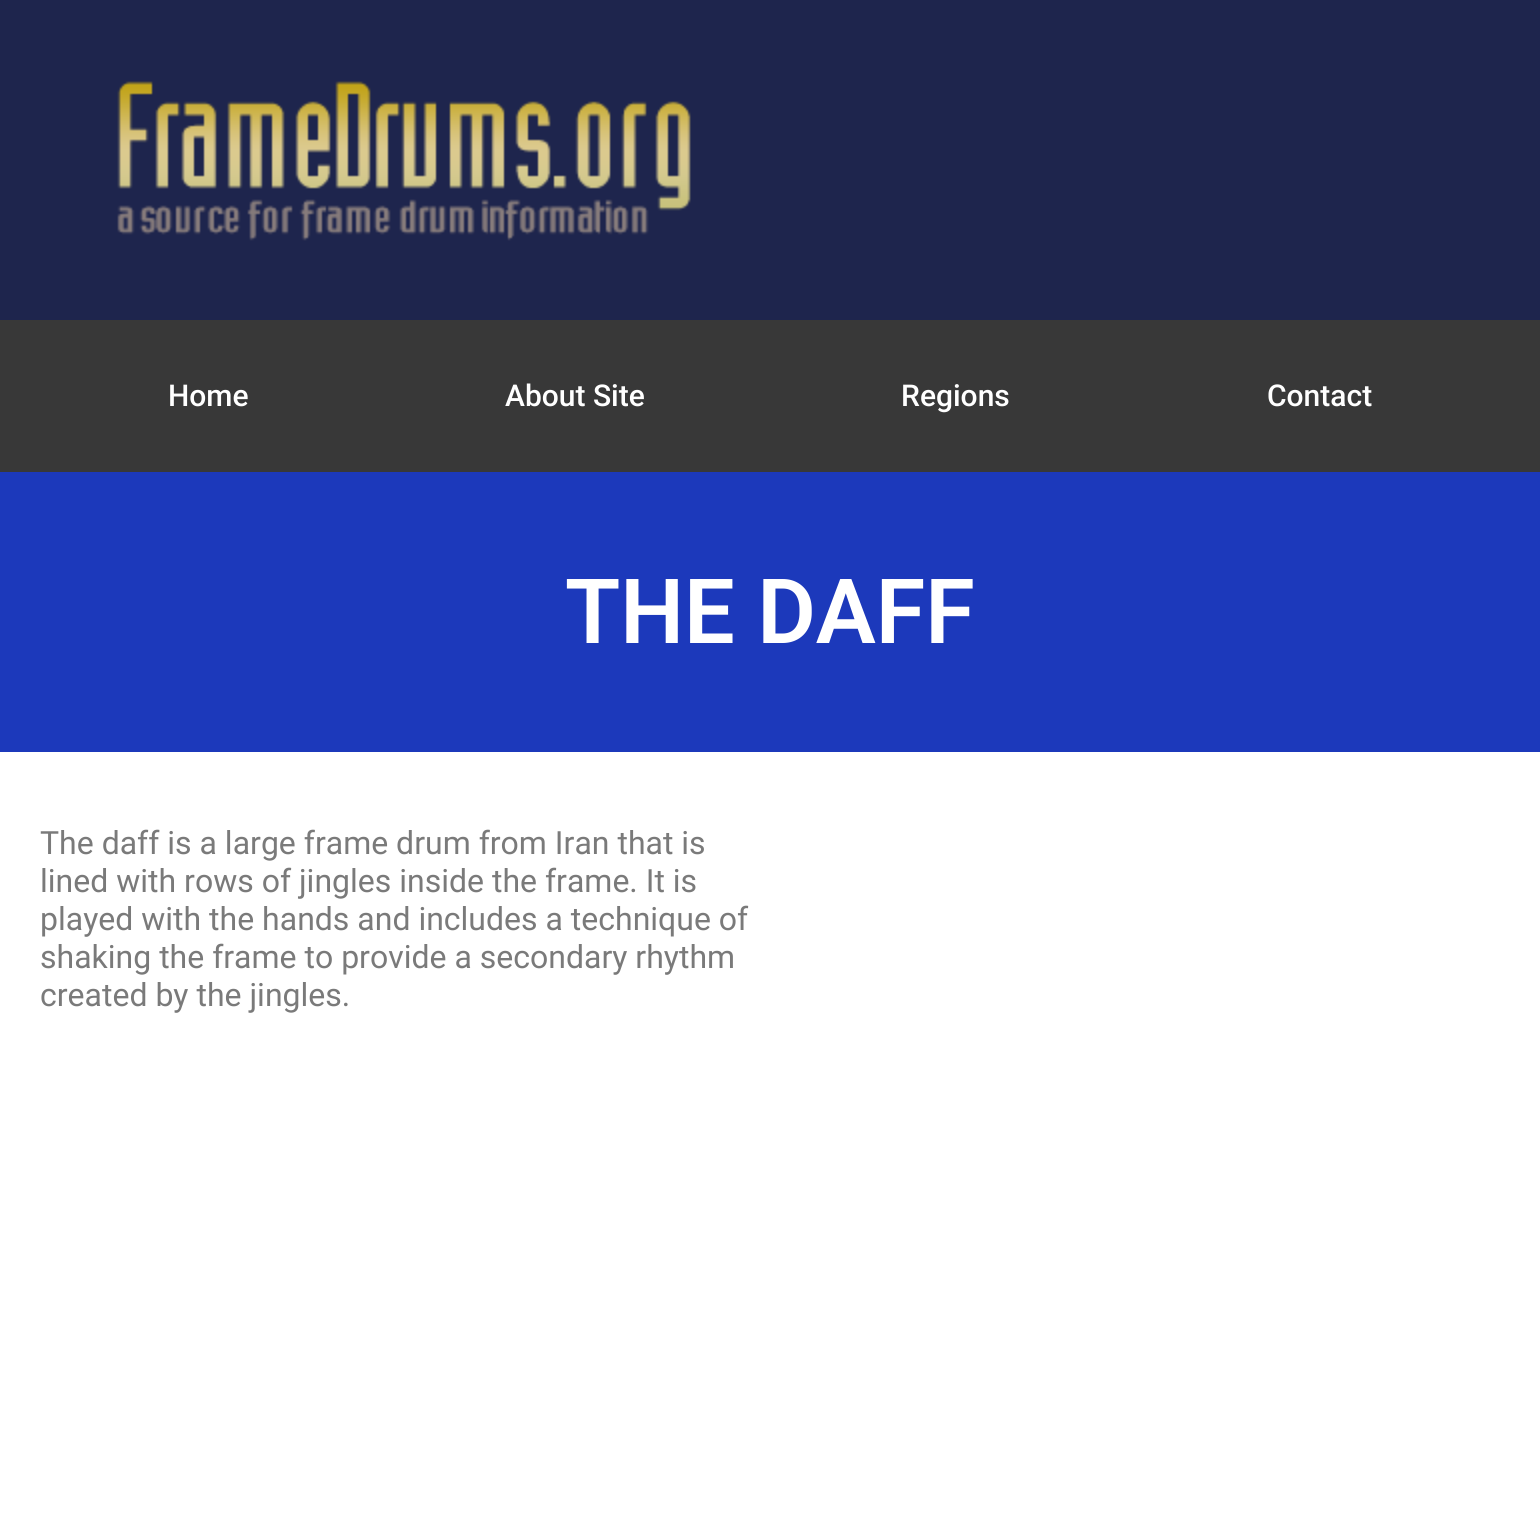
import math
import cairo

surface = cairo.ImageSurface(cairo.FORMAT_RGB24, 1540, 1515)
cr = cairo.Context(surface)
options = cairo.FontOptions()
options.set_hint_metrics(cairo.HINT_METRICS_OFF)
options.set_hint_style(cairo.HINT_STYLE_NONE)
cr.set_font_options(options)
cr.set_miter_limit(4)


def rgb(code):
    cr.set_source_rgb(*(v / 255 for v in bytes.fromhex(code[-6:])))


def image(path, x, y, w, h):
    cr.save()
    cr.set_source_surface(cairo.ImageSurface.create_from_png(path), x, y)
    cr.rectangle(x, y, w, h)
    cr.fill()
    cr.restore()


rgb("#ffffff")
cr.paint()
rgb("#1e254d")
cr.rectangle(0, 0, 1540, 320)
cr.fill()
image("img/1.png", 117, 81, 574, 160)
rgb("#383838")
cr.rectangle(0, 320, 1540, 152)
cr.fill()
rgb("#1c39bb")
cr.rectangle(0, 472, 1540, 280)
cr.fill()
cr.select_font_face("Roboto Medium")
cr.set_font_size(30)
rgb("#ffffff")
for x, y, s in [
    (168, 406, "Home"),
    (505, 406, "About Site"),
    (901, 406, "Regions"),
    (1267, 406, "Contact"),
]:
    cr.move_to(x, y)
    cr.show_text(s)
cr.select_font_face("Roboto SemiBold")
cr.set_font_size(90)
cr.move_to(565, 643)
cr.show_text("THE DAFF")
cr.select_font_face("Roboto")
cr.set_font_size(32)
rgb("#7a7a7a")
for x, y, s in [
    (40, 854, "The daff is a large frame drum from Iran that is"),
    (40, 892, "lined with rows of jingles inside the frame. It is"),
    (40, 930, "played with the hands and includes a technique of"),
    (40, 968, "shaking the frame to provide a secondary rhythm"),
    (40, 1006, "created by the jingles."),
]:
    cr.move_to(x, y)
    cr.show_text(s)
surface.write_to_png("page.png")
